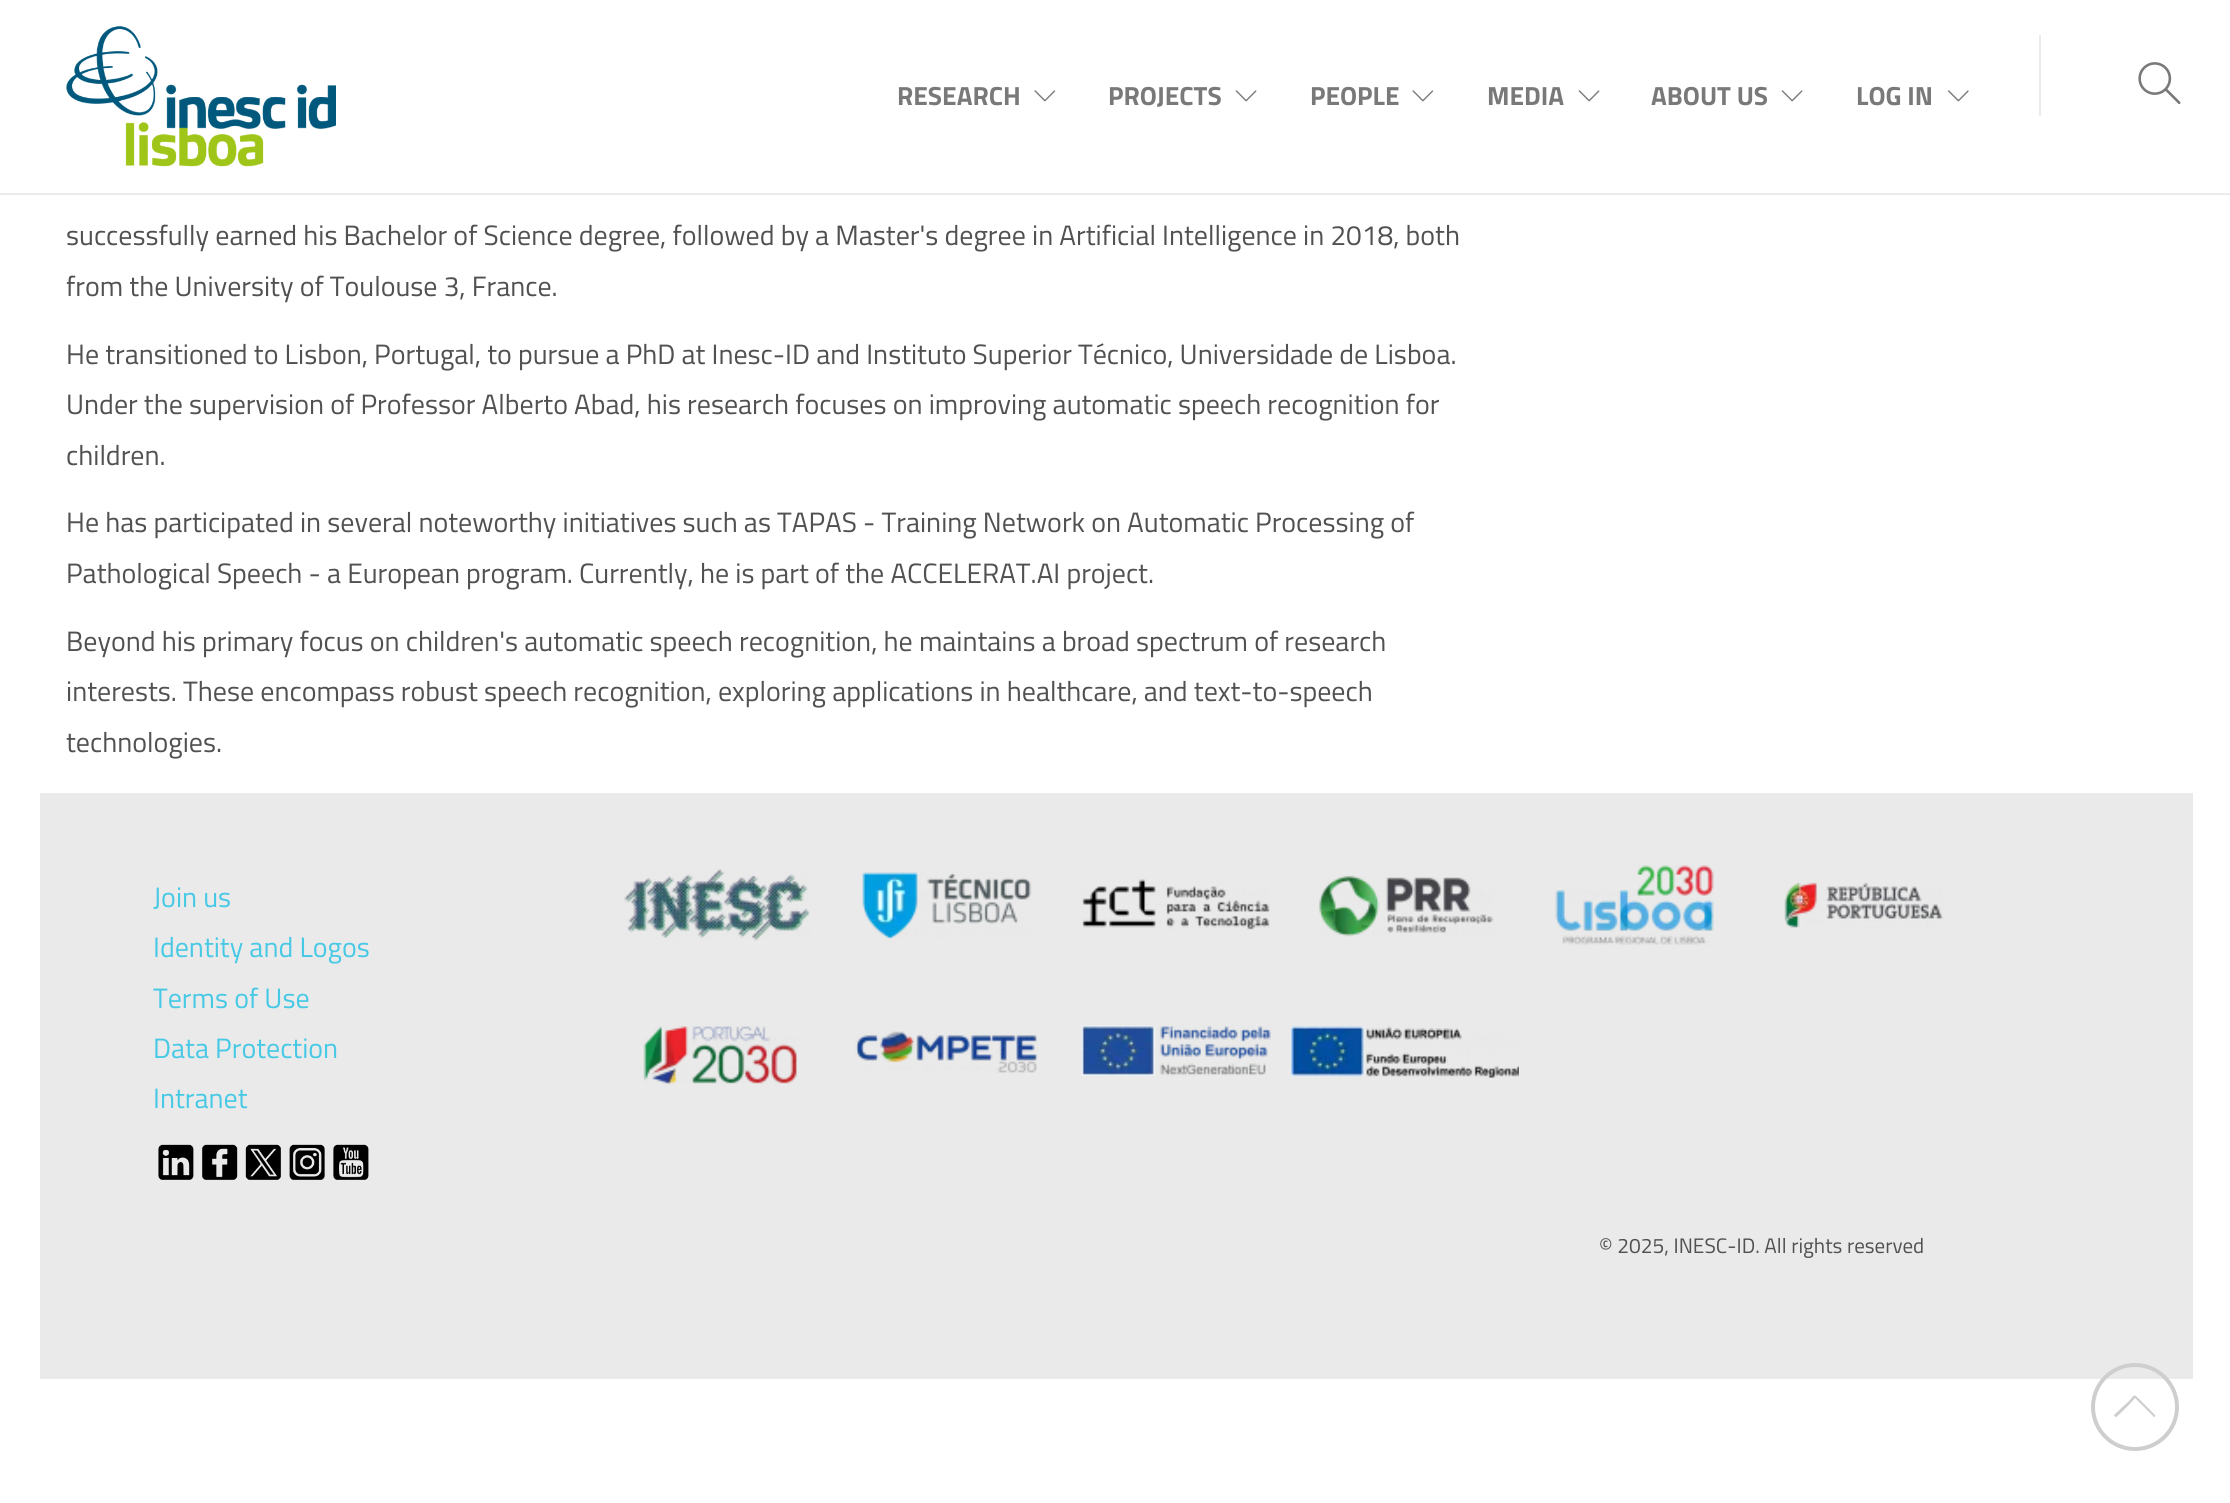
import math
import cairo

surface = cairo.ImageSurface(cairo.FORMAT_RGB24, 2230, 1503)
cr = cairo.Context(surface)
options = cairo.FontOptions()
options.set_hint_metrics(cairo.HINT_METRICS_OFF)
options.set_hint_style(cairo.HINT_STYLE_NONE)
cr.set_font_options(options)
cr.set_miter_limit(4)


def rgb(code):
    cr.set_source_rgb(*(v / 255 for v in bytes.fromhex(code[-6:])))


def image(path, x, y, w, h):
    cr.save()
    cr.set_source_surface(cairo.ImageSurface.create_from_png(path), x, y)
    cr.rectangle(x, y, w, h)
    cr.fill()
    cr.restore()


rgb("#ffffff")
cr.paint()
cr.set_source_rgba(0, 0, 0, 0.08)
cr.rectangle(0, 193, 2230, 2)
cr.fill()
image("img/1.png", 66, 26, 270, 141)
image("img/2.png", 1034, 90, 22, 12)
image("img/3.png", 1235, 90, 22, 12)
image("img/2.png", 1412, 90, 22, 12)
image("img/3.png", 1578, 90, 22, 12)
image("img/3.png", 1781, 90, 22, 12)
image("img/4.png", 1948, 90, 21, 12)
rgb("#ebebeb")
cr.rectangle(2039, 35, 2, 81)
cr.fill()
image("img/5.png", 2138, 62, 43, 43)
rgb("#eaeaea")
cr.rectangle(40, 793, 2153, 586)
cr.fill()
image("img/6.png", 158, 1144, 36, 36)
image("img/7.png", 202, 1144, 36, 36)
image("img/8.png", 245, 1144, 36, 36)
image("img/9.png", 289, 1144, 36, 36)
image("img/10.png", 333, 1144, 36, 36)
image("img/11.png", 624, 869, 186, 72)
image("img/12.png", 862, 872, 170, 68)
image("img/13.png", 1082, 879, 188, 51)
image("img/14.png", 1319, 875, 175, 62)
image("img/15.png", 1555, 865, 159, 80)
image("img/16.png", 1784, 882, 159, 46)
image("img/17.png", 643, 1026, 154, 59)
image("img/18.png", 855, 1031, 183, 42)
image("img/19.png", 1081, 1025, 190, 51)
image("img/20.png", 1291, 1026, 228, 52)
cr.arc(2135, 1407, 42, 0, 2 * math.pi)
rgb("#cecece")
cr.set_line_width(4)
cr.stroke()
cr.new_path()
cr.move_to(2114, 1415)
cr.curve_to(2114, 1416, 2115, 1417, 2116, 1417)
cr.curve_to(2117, 1417, 2133, 1401, 2135, 1398)
cr.line_to(2154, 1417)
cr.curve_to(2155, 1417, 2156, 1416, 2155, 1415)
cr.line_to(2139, 1399)
cr.curve_to(2133, 1393, 2135, 1395, 2128, 1402)
cr.close_path()
cr.fill()
cr.select_font_face("Titillium Web", cairo.FONT_SLANT_NORMAL, cairo.FONT_WEIGHT_BOLD)
cr.set_font_size(26.25)
rgb("#797979")
for x, y, s in [
    (897, 105, "RESEARCH"),
    (1108, 105, "PROJECTS"),
    (1310, 105, "PEOPLE"),
    (1487, 105, "MEDIA"),
    (1651, 105, "ABOUT US"),
    (1856, 105, "LOG IN"),
]:
    cr.move_to(x, y)
    cr.show_text(s)
cr.select_font_face("Titillium Web")
cr.set_font_size(28)
rgb("#515151")
for x, y, s in [
    (66, 245, "successfully earned his Bachelor of Science degree, followed by a Master's degree in Artificial Intelligence in 2018, both"),
    (66, 296, "from the University of Toulouse 3, France."),
    (66, 364, "He transitioned to Lisbon, Portugal, to pursue a PhD at Inesc-ID and Instituto Superior Técnico, Universidade de Lisboa."),
    (66, 414, "Under the supervision of Professor Alberto Abad, his research focuses on improving automatic speech recognition for"),
    (66, 465, "children."),
    (66, 532, "He has participated in several noteworthy initiatives such as TAPAS - Training Network on Automatic Processing of"),
    (66, 583, "Pathological Speech - a European program. Currently, he is part of the ACCELERAT.AI project."),
    (66, 651, "Beyond his primary focus on children's automatic speech recognition, he maintains a broad spectrum of research"),
    (66, 701, "interests. These encompass robust speech recognition, exploring applications in healthcare, and text-to-speech"),
    (66, 752, "technologies."),
]:
    cr.move_to(x, y)
    cr.show_text(s)
rgb("#47c9e5")
for x, y, s in [
    (153, 907, "Join us"),
    (153, 957, "Identity and Logos"),
    (153, 1008, "Terms of Use"),
    (153, 1058, "Data Protection"),
    (153, 1108, "Intranet"),
]:
    cr.move_to(x, y)
    cr.show_text(s)
cr.set_font_size(21)
rgb("#515151")
cr.move_to(1599, 1253)
cr.show_text("© 2025, INESC-ID. All rights reserved")
surface.write_to_png("page.png")
